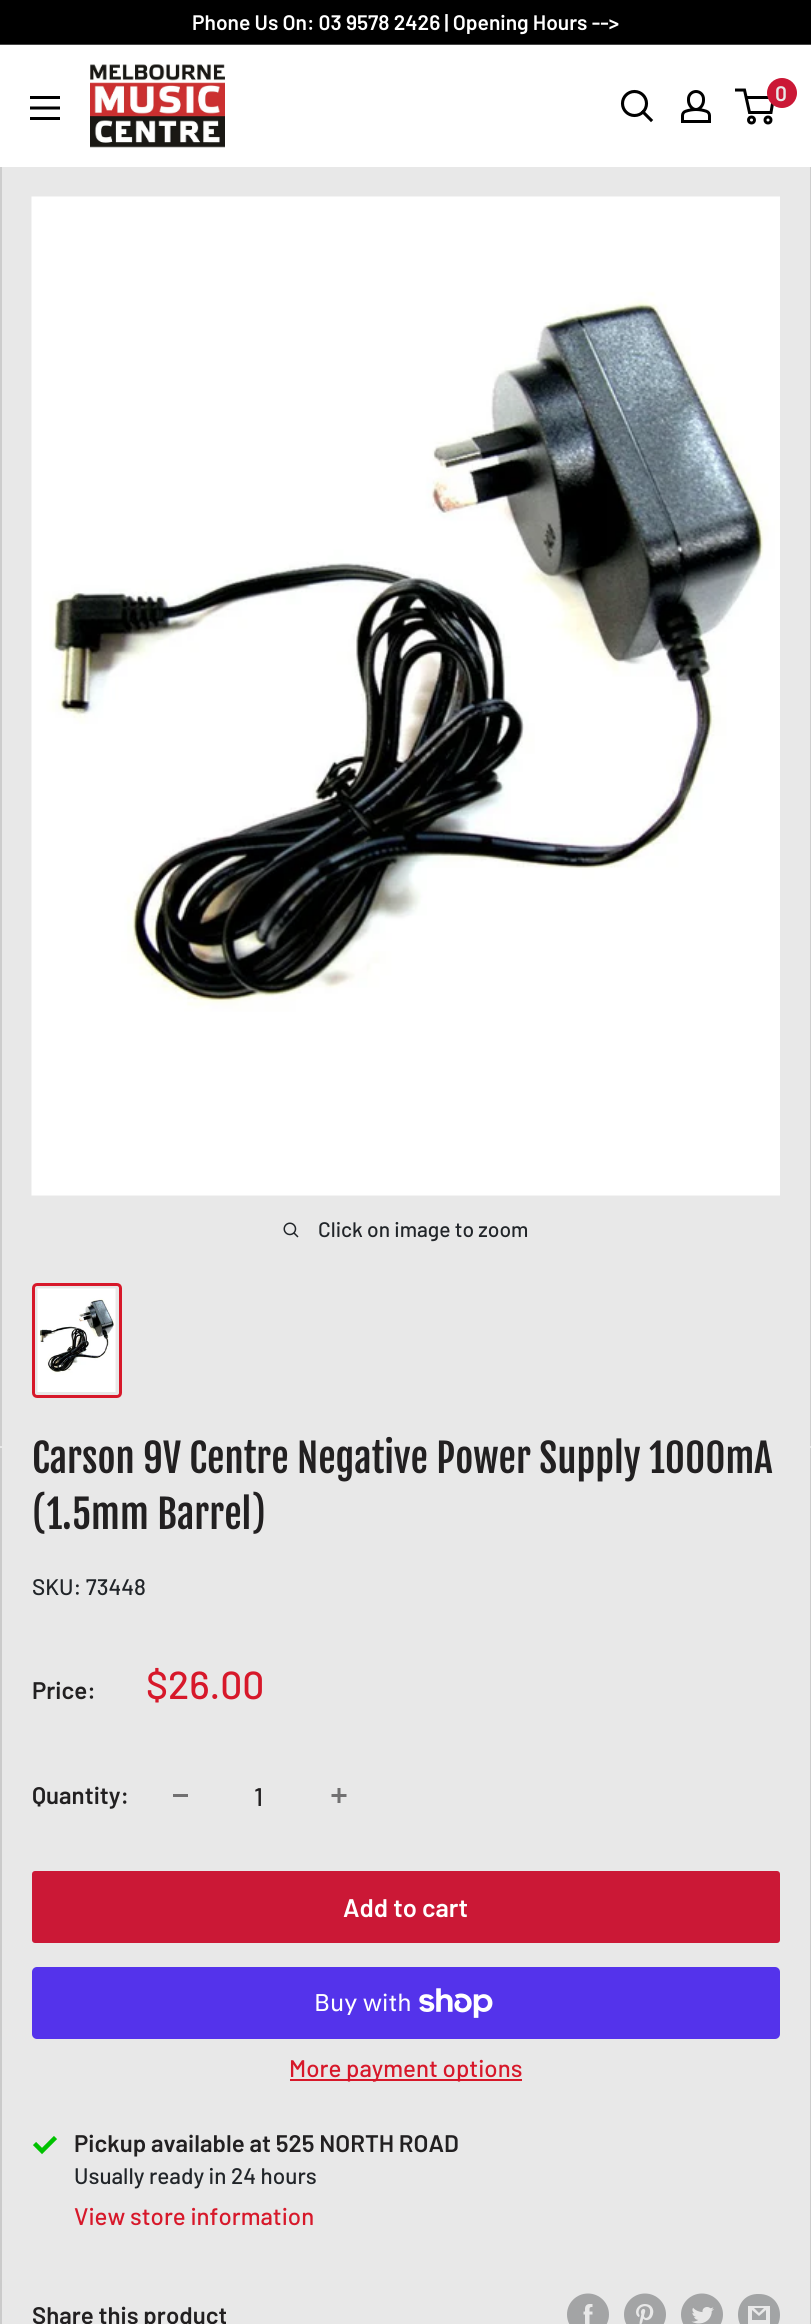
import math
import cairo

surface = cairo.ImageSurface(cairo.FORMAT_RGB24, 811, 2324)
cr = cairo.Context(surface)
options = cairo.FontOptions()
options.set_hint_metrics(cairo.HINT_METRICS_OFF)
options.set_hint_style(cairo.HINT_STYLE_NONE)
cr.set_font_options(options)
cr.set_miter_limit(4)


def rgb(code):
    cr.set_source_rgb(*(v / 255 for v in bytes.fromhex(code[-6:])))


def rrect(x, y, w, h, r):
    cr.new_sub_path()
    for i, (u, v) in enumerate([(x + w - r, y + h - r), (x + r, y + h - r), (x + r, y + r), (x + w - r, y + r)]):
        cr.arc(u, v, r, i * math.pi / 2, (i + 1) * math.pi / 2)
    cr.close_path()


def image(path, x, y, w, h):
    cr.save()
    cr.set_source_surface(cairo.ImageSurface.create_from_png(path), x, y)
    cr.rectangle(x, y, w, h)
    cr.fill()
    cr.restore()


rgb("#000000")
cr.paint()
rgb("#464646")
cr.rectangle(0, 44, 811, 1)
cr.fill()
rgb("#e8e8e8")
cr.rectangle(0, 167, 811, 1279)
cr.fill()
cr.set_source_rgba(0, 0, 0, 0.12)
cr.new_path()
cr.move_to(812, 166)
cr.line_to(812, 1448)
cr.line_to(810, 1446)
cr.line_to(810, 166)
cr.close_path()
cr.fill()
cr.new_path()
cr.move_to(0, 1448)
cr.line_to(0, 166)
cr.line_to(2, 166)
cr.line_to(2, 1446)
cr.close_path()
cr.fill()
rgb("#ffffff")
cr.rectangle(0, 45, 811, 122)
cr.fill()
image("img/1.png", 90, 64, 135, 84)
cr.new_path()
cr.move_to(651, 120)
cr.line_to(643, 112)
rgb("#000000")
cr.set_line_width(3.1)
cr.set_line_cap(cairo.LINE_CAP_SQUARE)
cr.stroke()
cr.arc(634.5, 103.5, 12, 0, 2 * math.pi)
cr.set_line_cap(cairo.LINE_CAP_BUTT)
cr.stroke()
image("img/2.png", 681, 90, 30, 33)
cr.arc(751.5, 120, 3, 0, 2 * math.pi)
cr.set_line_width(3)
cr.stroke()
cr.arc(768, 120, 3, 0, 2 * math.pi)
cr.stroke()
cr.new_path()
cr.move_to(746, 97.5)
cr.line_to(773.5, 97.5)
cr.line_to(771, 112.5)
cr.line_to(749.5, 112.5)
cr.line_to(744.5, 90)
cr.line_to(735, 90)
cr.stroke()
rgb("#cb1836")
cr.arc(782, 93, 15, 0, 2 * math.pi)
cr.fill()
image("img/3.png", 30, 96, 30, 24)
image("img/4.png", 31, 196, 749, 1000)
image("img/5.png", 283, 1222, 16, 16)
rrect(33.5, 1284.5, 87, 112, 3.5)
rgb("#d7182a")
cr.stroke()
image("img/6.png", 37, 1288, 79, 104)
rgb("#e8e8e8")
cr.new_path()
cr.move_to(0, 1446)
cr.line_to(0, 1448)
cr.line_to(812, 1448)
cr.line_to(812, 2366)
cr.line_to(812, 1446)
cr.close_path()
cr.fill()
cr.rectangle(2, 1448, 808, 876)
cr.fill()
rgb("#cbcbcb")
cr.new_path()
cr.move_to(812, 1448)
cr.line_to(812, 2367)
cr.line_to(810, 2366)
cr.line_to(810, 1448)
cr.close_path()
cr.fill()
cr.new_path()
cr.move_to(0, 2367)
cr.line_to(0, 1448)
cr.line_to(2, 1448)
cr.line_to(2, 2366)
cr.close_path()
cr.fill()
rgb("#717071")
cr.rectangle(173, 1794, 15, 3)
cr.fill()
image("img/7.png", 331, 1788, 16, 15)
rgb("#cb1836")
rrect(32, 1871, 748, 72, 3)
cr.fill()
rgb("#5433eb")
rrect(32, 1967, 748, 72, 5)
cr.fill()
image("img/8.png", 419, 1988, 74, 30)
rgb("#d7182a")
cr.rectangle(290, 2079, 232, 2)
cr.fill()
cr.new_path()
cr.move_to(34.5, 2143.5)
cr.line_to(42, 2151)
cr.line_to(55.5, 2137.5)
rgb("#00c200")
cr.set_line_width(4.5)
cr.stroke()
image("img/9.png", 567, 2293, 42, 31)
image("img/10.png", 624, 2293, 42, 31)
image("img/11.png", 681, 2293, 42, 31)
rgb("#a2a4a5")
cr.new_path()
cr.move_to(759, 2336)
cr.curve_to(731, 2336, 731, 2293, 759, 2294)
cr.curve_to(787, 2294, 787, 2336, 759, 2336)
cr.close_path()
cr.move_to(754, 2308)
cr.line_to(764, 2308)
cr.line_to(759, 2313)
cr.close_path()
cr.move_to(766, 2310)
cr.line_to(766, 2320)
cr.line_to(752, 2320)
cr.line_to(752, 2310)
cr.line_to(759, 2316)
cr.close_path()
cr.move_to(770, 2306)
cr.line_to(748, 2306)
cr.line_to(748, 2324)
cr.line_to(770, 2324)
cr.close_path()
cr.fill()
cr.select_font_face("Barlow SemiBold")
cr.set_font_size(21)
rgb("#ffffff")
cr.move_to(192, 30)
cr.show_text("Phone Us On: 03 9578 2426 | Opening Hours -->")
rgb("#e8e8e8")
cr.move_to(775, 101)
cr.show_text("0")
cr.select_font_face("Barlow Medium")
rgb("#212529")
cr.move_to(318, 1237)
cr.show_text("Click on image to zoom")
cr.select_font_face("Fjalla One")
cr.set_font_size(39)
rgb("#222021")
cr.move_to(32, 1473)
cr.show_text("Carson 9V Centre Negative Power Supply 1000mA")
cr.move_to(32, 1529)
cr.show_text("(1.5mm Barrel)")
cr.select_font_face("Barlow Medium")
cr.set_font_size(22.5)
rgb("#212529")
cr.move_to(32, 1595)
cr.show_text("SKU: 73448")
cr.select_font_face("Barlow SemiBold")
cr.set_font_size(24)
rgb("#222021")
cr.move_to(32, 1699)
cr.show_text("Price:")
cr.select_font_face("Barlow Medium")
cr.set_font_size(39)
rgb("#d7182a")
cr.move_to(146, 1699)
cr.show_text("$26.00")
cr.select_font_face("Barlow SemiBold")
cr.set_font_size(24)
rgb("#222021")
cr.move_to(32, 1804)
cr.show_text("Quantity:")
cr.select_font_face("Barlow Medium")
cr.set_font_size(25.5)
cr.move_to(254, 1806)
cr.show_text("1")
cr.select_font_face("Barlow SemiBold")
rgb("#ffffff")
cr.move_to(343, 1917)
cr.show_text("Add to cart")
cr.select_font_face("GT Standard")
cr.set_font_size(24)
cr.move_to(314, 2011)
cr.show_text("Buy with")
cr.select_font_face("Barlow Medium")
rgb("#d7182a")
cr.move_to(289, 2077)
cr.show_text("More payment options")
cr.select_font_face("Barlow SemiBold")
rgb("#222021")
cr.move_to(74, 2152)
cr.show_text("Pickup available at 525 NORTH ROAD")
cr.select_font_face("Barlow Medium")
cr.set_font_size(22.5)
rgb("#212529")
cr.move_to(74, 2184)
cr.show_text("Usually ready in 24 hours")
cr.set_font_size(24)
rgb("#d7182a")
cr.move_to(74, 2225)
cr.show_text("View store information")
cr.select_font_face("Barlow SemiBold")
rgb("#222021")
cr.move_to(32, 2324)
cr.show_text("Share this product")
surface.write_to_png("page.png")
